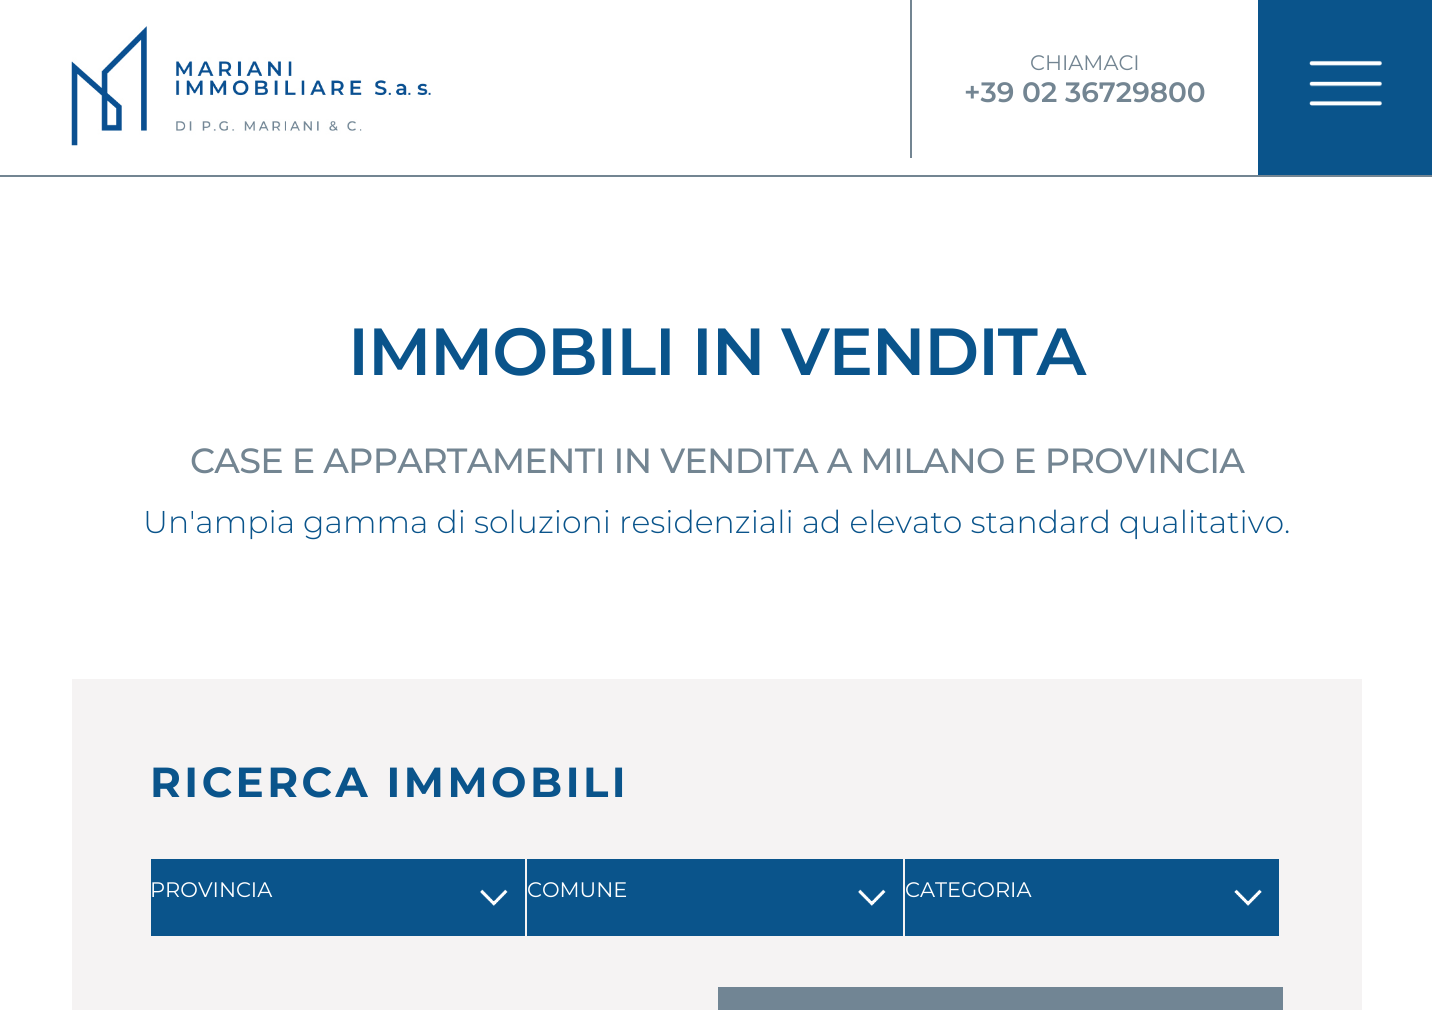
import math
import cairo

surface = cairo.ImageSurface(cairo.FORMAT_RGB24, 1432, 1010)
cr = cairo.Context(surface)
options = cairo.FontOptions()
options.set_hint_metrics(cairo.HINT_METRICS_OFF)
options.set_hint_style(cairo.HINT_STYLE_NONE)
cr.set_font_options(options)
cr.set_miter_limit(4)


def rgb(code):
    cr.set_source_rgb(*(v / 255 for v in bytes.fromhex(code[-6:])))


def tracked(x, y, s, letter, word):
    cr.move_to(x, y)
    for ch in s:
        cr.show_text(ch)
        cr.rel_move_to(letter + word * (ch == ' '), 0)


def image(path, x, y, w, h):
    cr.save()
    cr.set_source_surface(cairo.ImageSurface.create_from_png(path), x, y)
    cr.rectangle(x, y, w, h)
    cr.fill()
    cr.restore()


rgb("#ffffff")
cr.paint()
rgb("#738592")
cr.rectangle(0, 175, 1432, 2)
cr.fill()
image("img/1.png", 71, 26, 360, 120)
cr.rectangle(910, 0, 2, 158)
cr.fill()
rgb("#0a548b")
cr.rectangle(1258, 0, 174, 175)
cr.fill()
image("img/2.png", 1309, 60, 73, 46)
rgb("#f5f3f3")
cr.rectangle(72, 679, 1290, 331)
cr.fill()
rgb("#0a548b")
cr.rectangle(151, 859, 374, 77)
cr.fill()
image("img/3.png", 480, 889, 28, 17)
cr.rectangle(527, 859, 376, 77)
cr.fill()
image("img/3.png", 858, 889, 28, 17)
cr.rectangle(905, 859, 374, 77)
cr.fill()
image("img/4.png", 1234, 889, 28, 17)
rgb("#718594")
cr.rectangle(718, 987, 565, 23)
cr.fill()
cr.select_font_face("Montserrat")
cr.set_font_size(21)
rgb("#738592")
cr.move_to(1030, 70)
cr.show_text("CHIAMACI")
cr.select_font_face("Montserrat SemiBold")
cr.set_font_size(28)
cr.move_to(964, 102)
cr.show_text("+39 02 36729800")
cr.set_font_size(66.5)
rgb("#0a548b")
tracked(348, 375, "IMMOBILI IN VENDITA", -1.3, 0)
cr.select_font_face("Montserrat Medium")
cr.set_font_size(35)
rgb("#738592")
tracked(190, 473, "CASE E APPARTAMENTI IN VENDITA A MILANO E PROVINCIA", -0.7, 0)
cr.select_font_face("Montserrat Light")
cr.set_font_size(31.5)
rgb("#0a548b")
cr.move_to(143, 533)
cr.show_text("Un'ampia gamma di soluzioni residenziali ad elevato standard qualitativo.")
cr.select_font_face("Montserrat", cairo.FONT_SLANT_NORMAL, cairo.FONT_WEIGHT_BOLD)
cr.set_font_size(42)
tracked(150, 797, "RICERCA IMMOBILI", 3.5, 0)
cr.select_font_face("Montserrat")
cr.set_font_size(21)
rgb("#ffffff")
for x, y, s in [
    (150, 897, "PROVINCIA"),
    (527, 897, "COMUNE"),
    (905, 897, "CATEGORIA"),
]:
    cr.move_to(x, y)
    cr.show_text(s)
surface.write_to_png("page.png")
